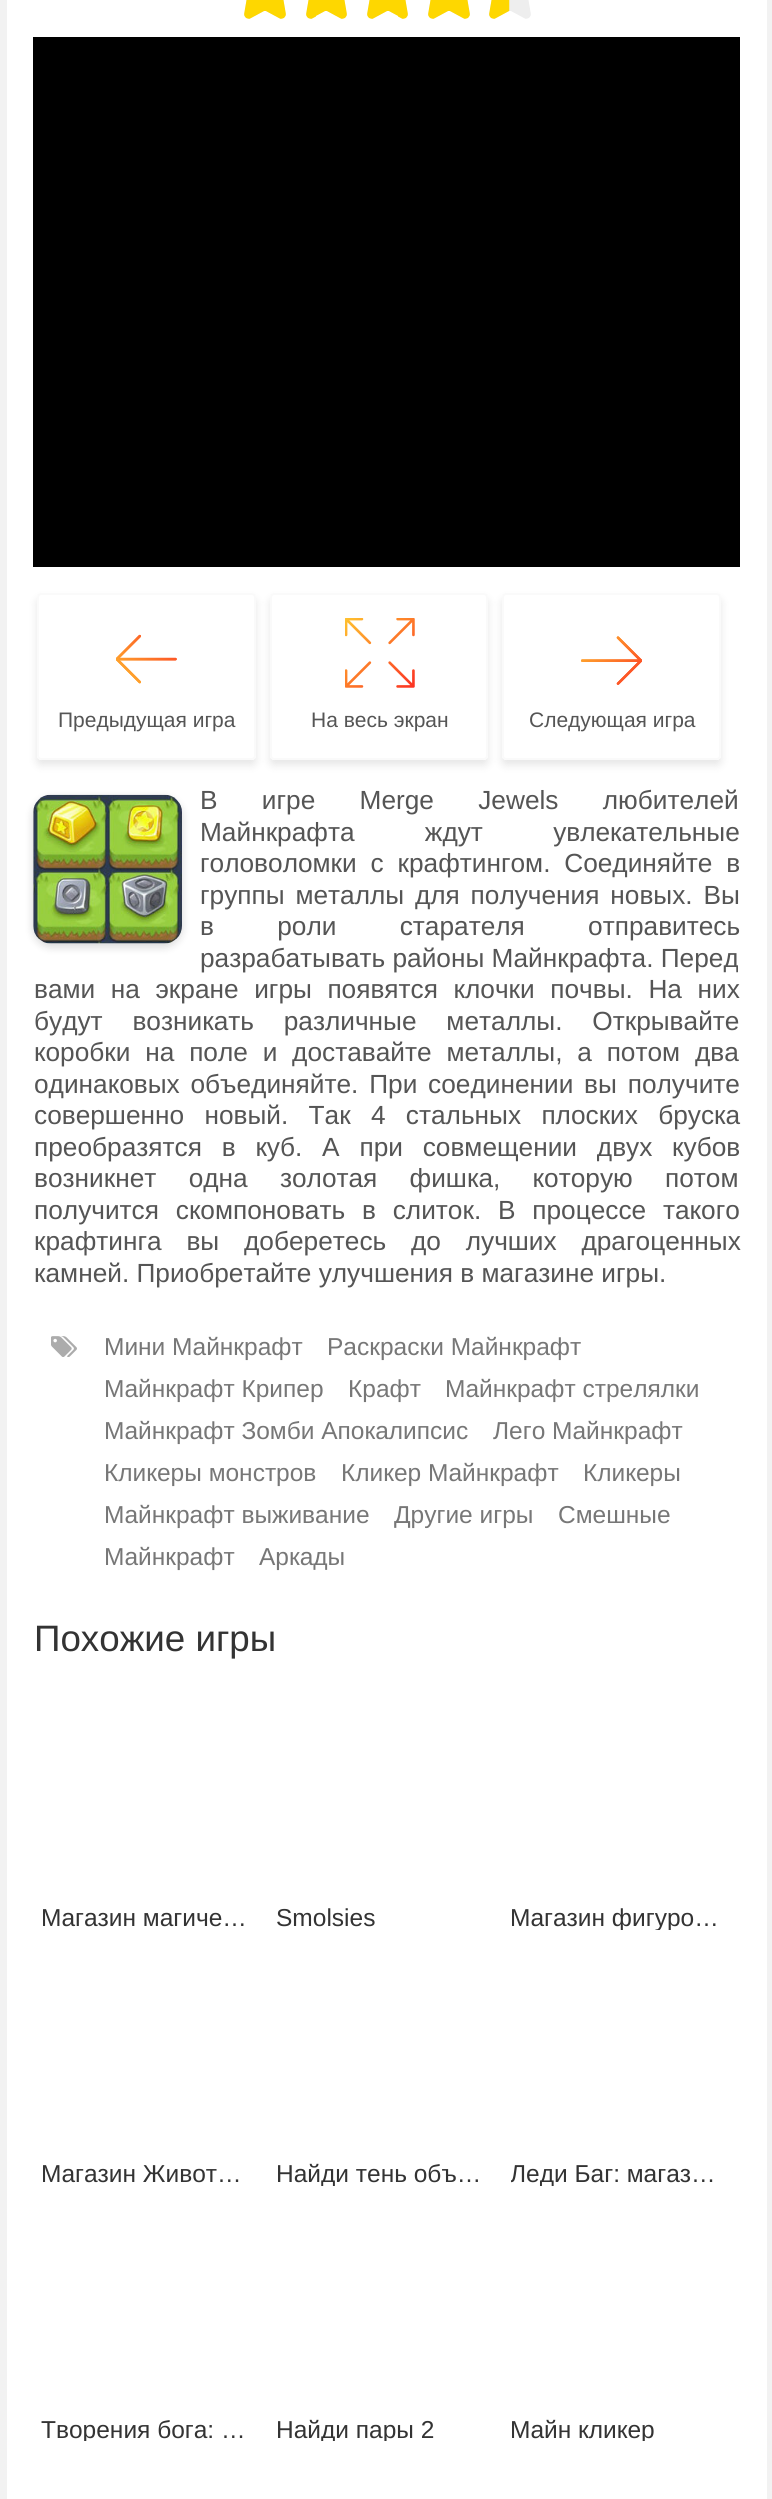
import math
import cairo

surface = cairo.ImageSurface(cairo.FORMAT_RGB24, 772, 2499)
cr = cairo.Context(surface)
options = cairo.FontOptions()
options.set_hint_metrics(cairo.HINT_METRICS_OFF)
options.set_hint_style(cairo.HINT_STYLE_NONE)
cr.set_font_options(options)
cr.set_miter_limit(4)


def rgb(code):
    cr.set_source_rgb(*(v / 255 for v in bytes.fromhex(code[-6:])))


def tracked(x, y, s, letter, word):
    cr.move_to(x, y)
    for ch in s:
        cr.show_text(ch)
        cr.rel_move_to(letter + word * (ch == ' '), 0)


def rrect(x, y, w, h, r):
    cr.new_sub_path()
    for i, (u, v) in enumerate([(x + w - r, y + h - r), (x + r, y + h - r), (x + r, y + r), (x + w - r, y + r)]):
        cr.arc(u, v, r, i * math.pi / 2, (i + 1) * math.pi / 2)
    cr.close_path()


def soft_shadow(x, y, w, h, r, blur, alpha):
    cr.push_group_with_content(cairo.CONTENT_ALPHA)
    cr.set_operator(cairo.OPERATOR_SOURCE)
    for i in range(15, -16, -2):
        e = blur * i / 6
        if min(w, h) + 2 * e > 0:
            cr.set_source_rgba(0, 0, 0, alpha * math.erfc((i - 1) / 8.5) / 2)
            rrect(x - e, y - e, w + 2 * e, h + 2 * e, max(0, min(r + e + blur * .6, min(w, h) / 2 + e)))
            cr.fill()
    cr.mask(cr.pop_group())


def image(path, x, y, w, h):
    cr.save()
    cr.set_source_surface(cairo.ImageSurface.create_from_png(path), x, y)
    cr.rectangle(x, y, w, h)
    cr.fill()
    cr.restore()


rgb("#f2f2f2")
cr.paint()
rgb("#ffffff")
cr.rectangle(7, 0, 760, 2499)
cr.fill()
image("img/1.png", 244, 0, 287, 19)
image("img/2.png", 244, 0, 266, 19)
rgb("#000000")
cr.rectangle(33, 37, 707, 530)
cr.fill()
cr.save()
cr.set_fill_rule(cairo.FILL_RULE_EVEN_ODD)
cr.new_path()
cr.move_to(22, 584)
cr.line_to(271, 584)
cr.line_to(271, 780)
cr.line_to(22, 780)
cr.close_path()
cr.move_to(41, 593)
cr.line_to(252, 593)
cr.curve_to(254, 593, 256, 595, 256, 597)
cr.line_to(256, 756)
cr.curve_to(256, 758, 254, 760, 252, 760)
cr.line_to(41, 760)
cr.curve_to(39, 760, 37, 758, 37, 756)
cr.line_to(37, 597)
cr.curve_to(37, 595, 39, 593, 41, 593)
cr.close_path()
cr.clip()
rgb("#000000")
soft_shadow(37, 599, 219, 166, 4, 4.5, 0.1)
cr.restore()
rrect(38, 594, 217, 165, 3)
rgb("#fafafa")
cr.stroke()
image("img/3.png", 116, 634, 61, 50)
cr.save()
cr.set_fill_rule(cairo.FILL_RULE_EVEN_ODD)
cr.new_path()
cr.move_to(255, 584)
cr.line_to(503, 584)
cr.line_to(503, 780)
cr.line_to(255, 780)
cr.close_path()
cr.move_to(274, 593)
cr.line_to(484, 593)
cr.curve_to(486, 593, 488, 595, 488, 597)
cr.line_to(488, 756)
cr.curve_to(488, 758, 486, 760, 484, 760)
cr.line_to(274, 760)
cr.curve_to(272, 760, 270, 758, 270, 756)
cr.line_to(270, 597)
cr.curve_to(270, 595, 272, 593, 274, 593)
cr.close_path()
cr.clip()
rgb("#000000")
soft_shadow(270, 599, 218, 166, 4, 4.5, 0.1)
cr.restore()
rrect(271, 594, 216, 165, 3)
cr.stroke()
image("img/4.png", 345, 618, 70, 70)
cr.save()
cr.set_fill_rule(cairo.FILL_RULE_EVEN_ODD)
cr.new_path()
cr.move_to(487, 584)
cr.line_to(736, 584)
cr.line_to(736, 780)
cr.line_to(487, 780)
cr.close_path()
cr.move_to(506, 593)
cr.line_to(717, 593)
cr.curve_to(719, 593, 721, 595, 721, 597)
cr.line_to(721, 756)
cr.curve_to(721, 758, 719, 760, 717, 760)
cr.line_to(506, 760)
cr.curve_to(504, 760, 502, 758, 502, 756)
cr.line_to(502, 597)
cr.curve_to(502, 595, 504, 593, 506, 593)
cr.close_path()
cr.clip()
rgb("#000000")
soft_shadow(502, 599, 219, 166, 4, 4.5, 0.1)
cr.restore()
rrect(503, 594, 217, 165, 3)
cr.stroke()
image("img/5.png", 581, 636, 61, 49)
rgb("#000000")
soft_shadow(33, 798, 149, 149, 18, 4.5, 0.15)
image("img/6.png", 33, 794, 149, 150)
image("img/7.png", 51, 1336, 26, 21)
cr.select_font_face("Liberation Sans")
cr.set_font_size(21)
rgb("#555555")
for x, y, s in [
    (58, 727, "Предыдущая игра"),
    (311, 727, "На весь экран"),
    (529, 727, "Следующая игра"),
]:
    cr.move_to(x, y)
    cr.show_text(s)
cr.set_font_size(26.25)
tracked(200, 809, "В игре Merge Jewels любителей", 0, 37)
tracked(200, 841, "Майнкрафта ждут увлекательные", 0, 63)
tracked(200, 872, "головоломки с крафтингом. Соединяйте в", 0, 6.5)
tracked(200, 904, "группы металлы для получения новых. Вы", 0, 3.5)
tracked(200, 935, "в роли старателя отправитесь", 0, 56)
cr.move_to(200, 967)
cr.show_text("разрабатывать районы Майнкрафта. Перед")
tracked(34, 998, "вами на экране игры появятся клочки почвы. На них", 0, 8.25)
tracked(34, 1030, "будут возникать различные металлы. Открывайте", 0, 22.5)
tracked(34, 1061, "коробки на поле и доставайте металлы, а потом два", 0, 7.5)
tracked(34, 1093, "одинаковых объединяйте. При соединении вы получите", 0, 3.5)
tracked(34, 1124, "совершенно новый. Так 4 стальных плоских бруска", 0, 13)
tracked(34, 1156, "преобразятся в куб. А при совмещении двух кубов", 0, 12.5)
tracked(34, 1187, "возникнет одна золотая фишка, которую потом", 0, 25)
tracked(34, 1219, "получится скомпоновать в слиток. В процессе такого", 0, 9.5)
tracked(34, 1250, "крафтинга вы доберетесь до лучших драгоценных", 0, 17.5)
cr.move_to(34, 1282)
cr.show_text("камней. Приобретайте улучшения в магазине игры.")
cr.set_font_size(24.5)
rgb("#777777")
for x, y, s in [
    (104, 1355, "Мини Майнкрафт"),
    (327, 1355, "Раскраски Майнкрафт"),
    (104, 1397, "Майнкрафт Крипер"),
    (348, 1397, "Крафт"),
    (445, 1397, "Майнкрафт стрелялки"),
    (104, 1439, "Майнкрафт Зомби Апокалипсис"),
    (493, 1439, "Лего Майнкрафт"),
    (104, 1481, "Кликеры монстров"),
    (341, 1481, "Кликер Майнкрафт"),
    (583, 1481, "Кликеры"),
    (104, 1523, "Майнкрафт выживание"),
    (394, 1523, "Другие игры"),
    (558, 1523, "Смешные"),
    (104, 1565, "Майнкрафт"),
    (259, 1565, "Аркады"),
]:
    cr.move_to(x, y)
    cr.show_text(s)
cr.set_font_size(36.75)
rgb("#333333")
cr.move_to(34, 1651)
cr.show_text("Похожие игры")
cr.set_font_size(24.5)
cr.move_to(41, 1926)
cr.show_text("Магазин магиче…")
cr.move_to(276, 1926)
cr.show_text("Smolsies")
cr.save()
cr.rectangle(511, 1906, 214, 24)
cr.clip()
cr.move_to(510, 1926)
cr.show_text("Магазин фигуро…")
cr.restore()
cr.move_to(41, 2182)
cr.show_text("Магазин Живот…")
cr.save()
cr.rectangle(277, 2161, 213, 25)
cr.clip()
cr.move_to(276, 2182)
cr.show_text("Найди тень объ…")
cr.restore()
cr.save()
cr.rectangle(511, 2161, 214, 25)
cr.clip()
cr.move_to(510, 2182)
cr.show_text("Леди Баг: магаз…")
cr.restore()
cr.save()
cr.rectangle(40, 2417, 216, 24)
cr.clip()
cr.move_to(41, 2438)
cr.show_text("Творения бога: …")
cr.restore()
cr.save()
cr.rectangle(277, 2417, 213, 24)
cr.clip()
cr.move_to(276, 2438)
cr.show_text("Найди пары 2")
cr.restore()
cr.save()
cr.rectangle(511, 2417, 214, 24)
cr.clip()
cr.move_to(510, 2438)
cr.show_text("Майн кликер")
cr.restore()
surface.write_to_png("page.png")
